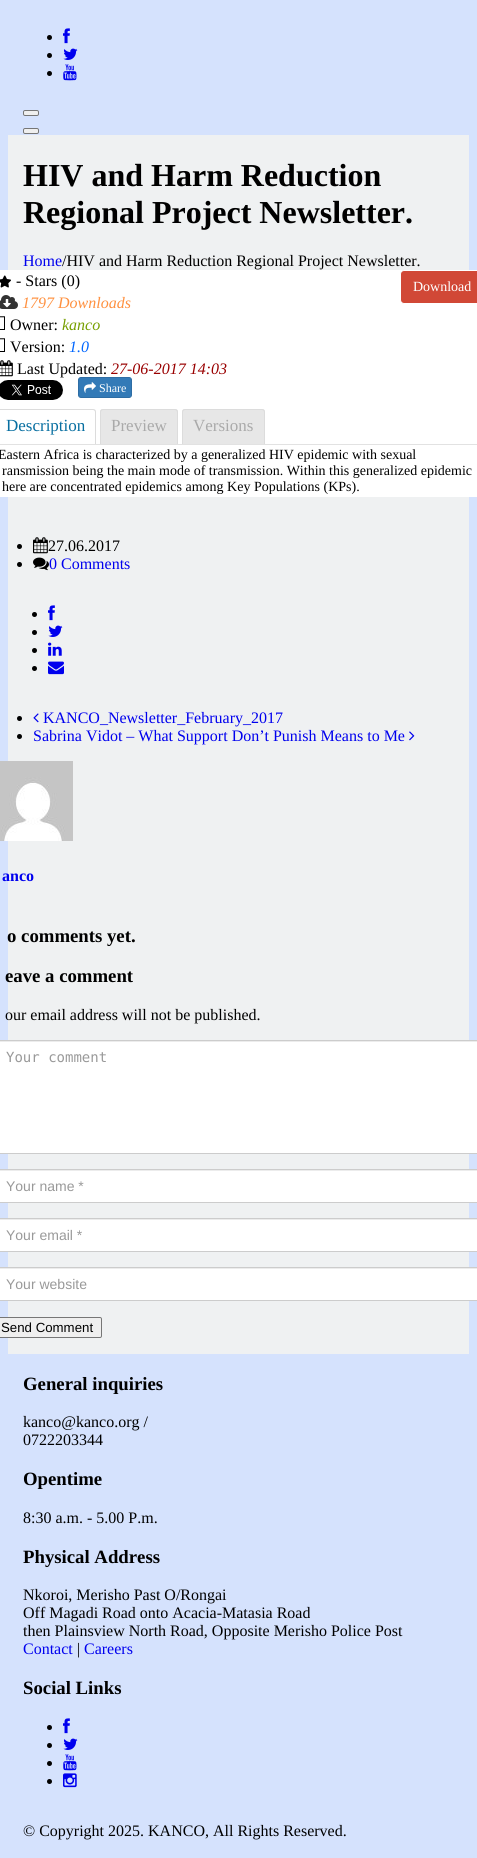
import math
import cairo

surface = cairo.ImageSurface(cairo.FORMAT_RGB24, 477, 1858)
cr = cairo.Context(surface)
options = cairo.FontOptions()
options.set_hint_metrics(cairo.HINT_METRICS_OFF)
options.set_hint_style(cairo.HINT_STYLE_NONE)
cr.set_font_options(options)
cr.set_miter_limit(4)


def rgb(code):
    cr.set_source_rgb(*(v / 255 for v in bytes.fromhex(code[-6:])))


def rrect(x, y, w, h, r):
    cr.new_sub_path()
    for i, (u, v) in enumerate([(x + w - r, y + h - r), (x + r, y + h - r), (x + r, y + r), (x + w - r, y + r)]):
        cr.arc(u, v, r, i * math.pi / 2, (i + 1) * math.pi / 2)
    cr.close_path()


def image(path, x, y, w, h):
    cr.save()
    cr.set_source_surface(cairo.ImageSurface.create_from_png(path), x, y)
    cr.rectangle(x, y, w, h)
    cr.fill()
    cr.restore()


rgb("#d5e2fd")
cr.paint()
rgb("#000000")
cr.arc(49.5, 37.5, 2.5, 0, 2 * math.pi)
cr.fill()
image("img/1.png", 63, 28, 7, 16)
cr.arc(49.5, 55.5, 2.5, 0, 2 * math.pi)
cr.fill()
image("img/2.png", 63, 48, 15, 12)
cr.arc(49.5, 73.5, 2.5, 0, 2 * math.pi)
cr.fill()
image("img/3.png", 63, 64, 14, 17)
rgb("#efefef")
rrect(23.5, 110.5, 15, 5, 1.5)
cr.fill_preserve()
rgb("#767676")
cr.set_line_width(1)
cr.stroke()
rgb("#efefef")
rrect(23.5, 128.5, 15, 5, 1.5)
cr.fill_preserve()
rgb("#767676")
cr.stroke()
rgb("#eff1f2")
cr.rectangle(8, 135, 461, 1219)
cr.fill()
rgb("#ffffff")
cr.rectangle(0, 270, 477, 227)
cr.fill()
image("img/4.png", 0, 275, 11, 13)
image("img/5.png", 0, 295, 18, 14)
image("img/6.png", 0, 316, 5, 14)
image("img/6.png", 0, 338, 5, 14)
image("img/7.png", 0, 360, 13, 17)
rgb("#d14836")
rrect(400.5, 270.5, 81, 33, 3.5)
cr.fill_preserve()
rgb("#ffffff")
cr.stroke()
image("img/8.png", 0, 380, 63, 20)
rgb("#dcdcdc")
cr.set_fill_rule(cairo.FILL_RULE_EVEN_ODD)
cr.new_path()
cr.move_to(-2, 409)
cr.line_to(93, 409)
cr.curve_to(95, 409, 96, 410, 96, 412)
cr.line_to(96, 444)
cr.line_to(-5, 444)
cr.line_to(-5, 412)
cr.curve_to(-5, 410, -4, 409, -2, 409)
cr.close_path()
cr.move_to(-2, 410)
cr.line_to(93, 410)
cr.curve_to(94, 410, 95, 411, 95, 412)
cr.line_to(95, 444)
cr.line_to(-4, 444)
cr.line_to(-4, 412)
cr.curve_to(-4, 411, -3, 410, -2, 410)
cr.close_path()
cr.fill()
rgb("#e7e7e7")
cr.new_path()
cr.move_to(103, 409)
cr.line_to(175, 409)
cr.curve_to(176.5, 409, 178, 410.5, 178, 412)
cr.line_to(178, 444)
cr.line_to(100, 444)
cr.line_to(100, 412)
cr.curve_to(100, 410.5, 101.5, 409, 103, 409)
cr.close_path()
cr.fill()
rgb("#dcdcdc")
cr.new_path()
cr.move_to(103, 409)
cr.line_to(175, 409)
cr.curve_to(177, 409, 178, 410, 178, 412)
cr.line_to(178, 444)
cr.line_to(100, 444)
cr.line_to(100, 412)
cr.curve_to(100, 410, 101, 409, 103, 409)
cr.close_path()
cr.move_to(103, 410)
cr.line_to(175, 410)
cr.curve_to(176, 410, 177, 411, 177, 412)
cr.line_to(177, 444)
cr.line_to(101, 444)
cr.line_to(101, 412)
cr.curve_to(101, 411, 102, 410, 103, 410)
cr.close_path()
cr.fill()
rgb("#e7e7e7")
cr.new_path()
cr.move_to(185, 409)
cr.line_to(262, 409)
cr.curve_to(263.5, 409, 265, 410.5, 265, 412)
cr.line_to(265, 444)
cr.line_to(182, 444)
cr.line_to(182, 412)
cr.curve_to(182, 410.5, 183.5, 409, 185, 409)
cr.close_path()
cr.fill()
rgb("#dcdcdc")
cr.new_path()
cr.move_to(185, 409)
cr.line_to(262, 409)
cr.curve_to(264, 409, 265, 410, 265, 412)
cr.line_to(265, 444)
cr.line_to(182, 444)
cr.line_to(182, 412)
cr.curve_to(182, 410, 183, 409, 185, 409)
cr.close_path()
cr.move_to(185, 410)
cr.line_to(262, 410)
cr.curve_to(263, 410, 264, 411, 264, 412)
cr.line_to(264, 444)
cr.line_to(183, 444)
cr.line_to(183, 412)
cr.curve_to(183, 411, 184, 410, 185, 410)
cr.close_path()
cr.fill()
rgb("#e2e2e2")
cr.rectangle(0, 444, 477, 1)
cr.fill()
rgb("#000000")
cr.arc(19.5, 546.5, 2.5, 0, 2 * math.pi)
cr.fill()
image("img/10.png", 33, 537, 15, 17)
cr.arc(19.5, 564.5, 2.5, 0, 2 * math.pi)
cr.fill()
image("img/11.png", 33, 557, 16, 14)
cr.arc(34.5, 614.5, 2.5, 0, 2 * math.pi)
cr.fill()
image("img/12.png", 48, 605, 7, 16)
cr.arc(34.5, 632.5, 2.5, 0, 2 * math.pi)
cr.fill()
image("img/13.png", 48, 625, 15, 12)
cr.arc(34.5, 650.5, 2.5, 0, 2 * math.pi)
cr.fill()
image("img/14.png", 48, 642, 14, 14)
cr.arc(34.5, 668.5, 2.5, 0, 2 * math.pi)
cr.fill()
image("img/15.png", 48, 661, 16, 14)
cr.arc(19.5, 718.5, 2.5, 0, 2 * math.pi)
cr.fill()
image("img/16.png", 33, 713, 6, 10)
cr.arc(19.5, 736.5, 2.5, 0, 2 * math.pi)
cr.fill()
image("img/17.png", 409, 731, 6, 10)
image("img/18.png", 0, 761, 73, 80)
rgb("#ffffff")
cr.rectangle(0, 1042, 477, 111)
cr.fill()
rgb("#ececec")
cr.set_fill_rule(cairo.FILL_RULE_WINDING)
cr.new_path()
cr.move_to(-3, 1042)
cr.line_to(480, 1042)
cr.curve_to(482, 1042, 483, 1043, 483, 1045)
cr.line_to(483, 1044)
cr.curve_to(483, 1042, 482, 1041, 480, 1041)
cr.line_to(-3, 1041)
cr.curve_to(-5, 1041, -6, 1042, -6, 1044)
cr.line_to(-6, 1045)
cr.curve_to(-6, 1043, -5, 1042, -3, 1042)
cr.close_path()
cr.fill()
cr.rectangle(-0.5, 1040.5, 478, 113)
rgb("#cccccc")
cr.stroke()
rgb("#ffffff")
cr.rectangle(0, 1171, 477, 31)
cr.fill()
rgb("#ececec")
cr.new_path()
cr.move_to(-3, 1171)
cr.line_to(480, 1171)
cr.curve_to(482, 1171, 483, 1172, 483, 1174)
cr.line_to(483, 1173)
cr.curve_to(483, 1171, 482, 1170, 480, 1170)
cr.line_to(-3, 1170)
cr.curve_to(-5, 1170, -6, 1171, -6, 1173)
cr.line_to(-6, 1174)
cr.curve_to(-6, 1172, -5, 1171, -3, 1171)
cr.close_path()
cr.fill()
cr.rectangle(-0.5, 1169.5, 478, 33)
rgb("#cccccc")
cr.stroke()
rgb("#ffffff")
cr.rectangle(0, 1220, 477, 31)
cr.fill()
rgb("#ececec")
cr.new_path()
cr.move_to(-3, 1220)
cr.line_to(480, 1220)
cr.curve_to(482, 1220, 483, 1221, 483, 1223)
cr.line_to(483, 1222)
cr.curve_to(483, 1220, 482, 1219, 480, 1219)
cr.line_to(-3, 1219)
cr.curve_to(-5, 1219, -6, 1220, -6, 1222)
cr.line_to(-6, 1223)
cr.curve_to(-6, 1221, -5, 1220, -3, 1220)
cr.close_path()
cr.fill()
cr.rectangle(-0.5, 1218.5, 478, 33)
rgb("#cccccc")
cr.stroke()
rgb("#ffffff")
cr.rectangle(0, 1269, 477, 31)
cr.fill()
rgb("#ececec")
cr.new_path()
cr.move_to(-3, 1269)
cr.line_to(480, 1269)
cr.curve_to(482, 1269, 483, 1270, 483, 1272)
cr.line_to(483, 1271)
cr.curve_to(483, 1269, 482, 1268, 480, 1268)
cr.line_to(-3, 1268)
cr.curve_to(-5, 1268, -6, 1269, -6, 1271)
cr.line_to(-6, 1272)
cr.curve_to(-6, 1270, -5, 1269, -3, 1269)
cr.close_path()
cr.fill()
cr.rectangle(-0.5, 1267.5, 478, 33)
rgb("#cccccc")
cr.stroke()
rgb("#efefef")
rrect(-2.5, 1317.5, 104, 20, 1.5)
cr.fill_preserve()
rgb("#767676")
cr.stroke()
rgb("#000000")
cr.arc(49.5, 1727.5, 2.5, 0, 2 * math.pi)
cr.fill()
image("img/1.png", 63, 1718, 7, 16)
cr.arc(49.5, 1745.5, 2.5, 0, 2 * math.pi)
cr.fill()
image("img/2.png", 63, 1738, 15, 12)
cr.arc(49.5, 1763.5, 2.5, 0, 2 * math.pi)
cr.fill()
image("img/3.png", 63, 1754, 14, 17)
cr.arc(49.5, 1781.5, 2.5, 0, 2 * math.pi)
cr.fill()
image("img/19.png", 63, 1773, 14, 15)
cr.select_font_face("Liberation Serif", cairo.FONT_SLANT_NORMAL, cairo.FONT_WEIGHT_BOLD)
cr.set_font_size(32)
cr.move_to(23, 186)
cr.show_text("HIV and Harm Reduction")
cr.move_to(23, 223)
cr.show_text("Regional Project Newsletter.")
cr.select_font_face("Liberation Serif")
cr.set_font_size(16)
rgb("#0000ee")
cr.move_to(23, 266)
cr.show_text("Home")
rgb("#000000")
cr.move_to(62, 266)
cr.show_text("/HIV and Harm Reduction Regional Project Newsletter.")
cr.move_to(16, 286)
cr.show_text("- Stars (0)")
cr.select_font_face("Liberation Serif", cairo.FONT_SLANT_ITALIC)
rgb("#ff9140")
cr.move_to(22, 308)
cr.show_text("1797 Downloads")
cr.select_font_face("Liberation Serif")
rgb("#000000")
cr.move_to(10, 330)
cr.show_text("Owner:")
cr.select_font_face("Liberation Serif", cairo.FONT_SLANT_ITALIC)
rgb("#779f00")
cr.move_to(62, 330)
cr.show_text("kanco")
cr.select_font_face("Liberation Serif")
rgb("#000000")
cr.move_to(10, 352)
cr.show_text("Version:")
cr.select_font_face("Liberation Serif", cairo.FONT_SLANT_ITALIC)
rgb("#0066ff")
cr.move_to(69, 352)
cr.show_text("1.0")
cr.select_font_face("Liberation Serif")
rgb("#000000")
cr.move_to(17, 374)
cr.show_text("Last Updated:")
cr.select_font_face("Liberation Serif", cairo.FONT_SLANT_ITALIC)
rgb("#990000")
cr.move_to(111, 374)
cr.show_text("27-06-2017 14:03")
cr.select_font_face("Liberation Serif")
cr.set_font_size(14)
rgb("#ffffff")
cr.move_to(413, 291)
cr.show_text("Download")
rgb("#337ab7")
rrect(78.5, 377.5, 53, 20, 2.5)
cr.fill_preserve()
rgb("#2e6da4")
cr.stroke()
image("img/9.png", 84, 382, 12, 11)
cr.set_font_size(12)
rgb("#ffffff")
cr.move_to(99, 392)
cr.show_text("Share")
cr.set_font_size(17)
rgb("#086fa1")
cr.move_to(6, 431)
cr.show_text("Description")
rgb("#aaaaaa")
cr.move_to(111, 431)
cr.show_text("Preview")
cr.move_to(193, 431)
cr.show_text("Versions")
cr.set_font_size(14)
rgb("#000000")
for x, y, s in [
    (-2, 459, "Eastern Africa is characterized by a generalized HIV epidemic with sexual"),
    (2, 475, "ransmission being the main mode of transmission. Within this generalized epidemic"),
    (2, 491, "here are concentrated epidemics among Key Populations (KPs)."),
]:
    cr.move_to(x, y)
    cr.show_text(s)
cr.set_font_size(16)
cr.move_to(48, 551)
cr.show_text("27.06.2017")
rgb("#0000ee")
for x, y, s in [
    (49, 569, "0 Comments"),
    (43, 723, "KANCO_Newsletter_February_2017"),
    (33, 741, "Sabrina Vidot – What Support Don’t Punish Means to Me"),
]:
    cr.move_to(x, y)
    cr.show_text(s)
cr.select_font_face("Liberation Serif", cairo.FONT_SLANT_NORMAL, cairo.FONT_WEIGHT_BOLD)
cr.move_to(2, 881)
cr.show_text("anco")
cr.set_font_size(18.75)
rgb("#000000")
cr.move_to(7, 942)
cr.show_text("o comments yet.")
cr.move_to(5, 982)
cr.show_text("eave a comment")
cr.select_font_face("Liberation Serif")
cr.set_font_size(16)
cr.move_to(5, 1020)
cr.show_text("our email address will not be published.")
cr.select_font_face("DejaVu Sans Mono")
cr.set_font_size(14)
rgb("#999999")
cr.move_to(6, 1062)
cr.show_text("Your comment")
cr.select_font_face("Liberation Sans")
for x, y, s in [
    (6, 1191, "Your name *"),
    (6, 1240, "Your email *"),
    (6, 1289, "Your website"),
]:
    cr.move_to(x, y)
    cr.show_text(s)
cr.set_font_size(13.25)
rgb("#000000")
cr.move_to(1, 1332)
cr.show_text("Send Comment")
cr.select_font_face("Liberation Serif", cairo.FONT_SLANT_NORMAL, cairo.FONT_WEIGHT_BOLD)
cr.set_font_size(18.75)
cr.move_to(23, 1390)
cr.show_text("General inquiries")
cr.select_font_face("Liberation Serif")
cr.set_font_size(16)
cr.move_to(23, 1427)
cr.show_text("kanco@kanco.org /")
cr.move_to(23, 1445)
cr.show_text("0722203344")
cr.select_font_face("Liberation Serif", cairo.FONT_SLANT_NORMAL, cairo.FONT_WEIGHT_BOLD)
cr.set_font_size(18.75)
cr.move_to(23, 1485)
cr.show_text("Opentime")
cr.select_font_face("Liberation Serif")
cr.set_font_size(16)
cr.move_to(23, 1523)
cr.show_text("8:30 a.m. - 5.00 P.m.")
cr.select_font_face("Liberation Serif", cairo.FONT_SLANT_NORMAL, cairo.FONT_WEIGHT_BOLD)
cr.set_font_size(18.75)
cr.move_to(23, 1563)
cr.show_text("Physical Address")
cr.select_font_face("Liberation Serif")
cr.set_font_size(16)
for x, y, s in [
    (23, 1600, "Nkoroi, Merisho Past O/Rongai"),
    (23, 1618, "Off Magadi Road onto Acacia-Matasia Road"),
    (23, 1636, "then Plainsview North Road, Opposite Merisho Police Post"),
]:
    cr.move_to(x, y)
    cr.show_text(s)
rgb("#0000ee")
cr.move_to(23, 1654)
cr.show_text("Contact")
rgb("#000000")
cr.move_to(77, 1654)
cr.show_text("|")
rgb("#0000ee")
cr.move_to(84, 1654)
cr.show_text("Careers")
cr.select_font_face("Liberation Serif", cairo.FONT_SLANT_NORMAL, cairo.FONT_WEIGHT_BOLD)
cr.set_font_size(18.75)
rgb("#000000")
cr.move_to(23, 1694)
cr.show_text("Social Links")
cr.select_font_face("Liberation Serif")
cr.set_font_size(16)
cr.move_to(23, 1836)
cr.show_text("© Copyright 2025. KANCO, All Rights Reserved.")
surface.write_to_png("page.png")
